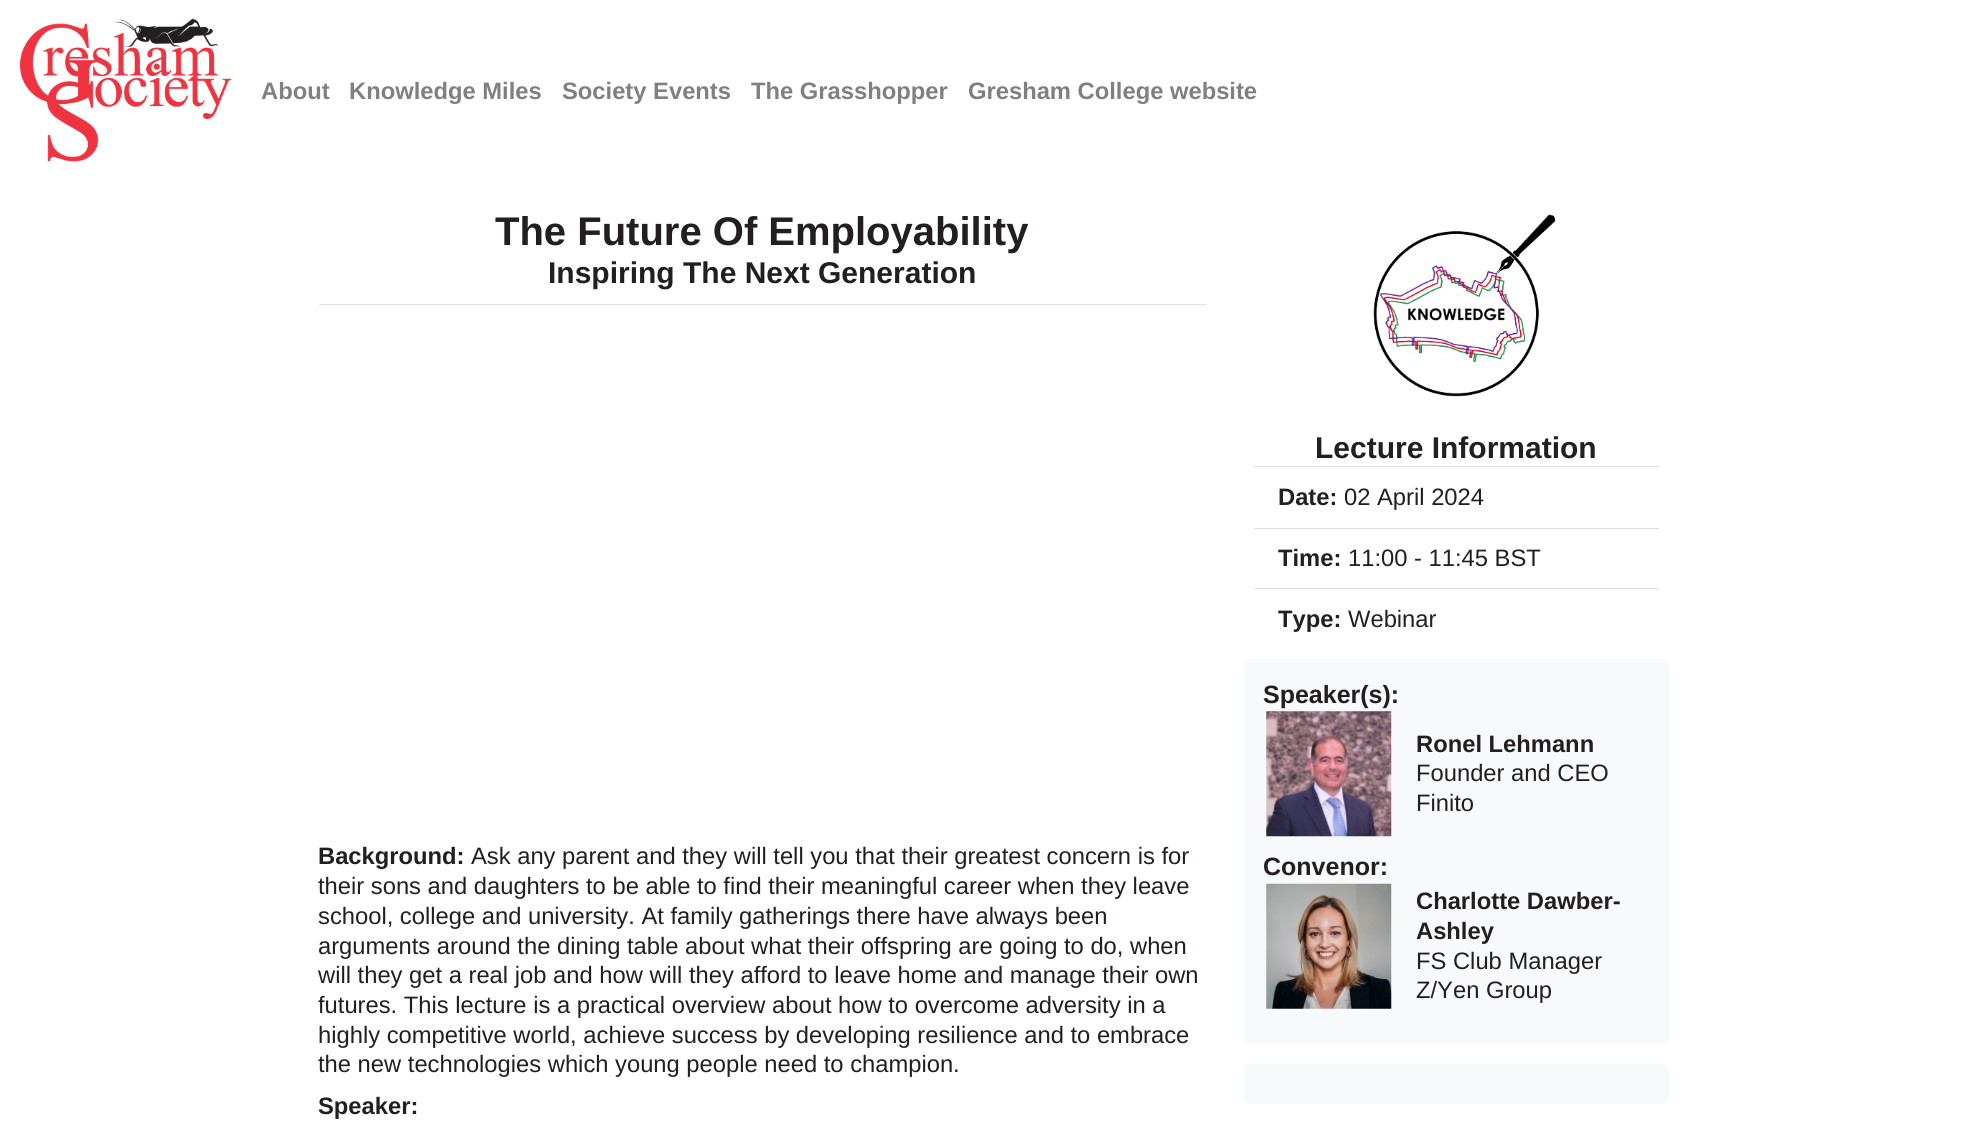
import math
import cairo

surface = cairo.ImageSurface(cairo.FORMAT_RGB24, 1986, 1122)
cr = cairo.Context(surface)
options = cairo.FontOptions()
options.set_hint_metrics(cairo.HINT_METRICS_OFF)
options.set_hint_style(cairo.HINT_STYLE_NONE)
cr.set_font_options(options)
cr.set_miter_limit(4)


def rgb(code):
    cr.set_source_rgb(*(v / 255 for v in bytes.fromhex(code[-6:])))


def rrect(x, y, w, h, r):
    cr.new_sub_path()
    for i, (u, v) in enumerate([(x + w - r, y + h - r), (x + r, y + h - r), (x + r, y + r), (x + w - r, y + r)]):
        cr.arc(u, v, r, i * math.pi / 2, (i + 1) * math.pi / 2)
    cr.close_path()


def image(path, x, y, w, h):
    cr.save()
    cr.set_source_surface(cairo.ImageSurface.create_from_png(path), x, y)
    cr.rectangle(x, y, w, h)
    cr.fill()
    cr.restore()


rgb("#ffffff")
cr.paint()
image("img/1.png", 20, 18, 212, 144)
rgb("#dee2e6")
cr.rectangle(319, 304, 887, 1)
cr.fill()
image("img/2.png", 1373, 214, 183, 183)
for x, y, w, h, color in [
    (1254, 466, 405, 1, "#dfdfdf"),
    (1254, 528, 405, 1, "#dfdfdf"),
    (1254, 588, 405, 1, "#dfdfdf"),
]:
    rgb(color)
    cr.rectangle(x, y, w, h)
    cr.fill()
rgb("#f8f9fa")
rrect(1244, 659, 425, 385, 5)
cr.fill()
image("img/3.png", 1266, 711, 126, 126)
image("img/4.png", 1266, 883, 126, 126)
rrect(1244, 1064, 425, 40, 5)
cr.fill()
cr.select_font_face("Liberation Sans", cairo.FONT_SLANT_NORMAL, cairo.FONT_WEIGHT_BOLD)
cr.set_font_size(23.75)
rgb("#808080")
for x, y, s in [
    (261, 99, "About"),
    (349, 99, "Knowledge Miles"),
    (562, 99, "Society Events"),
    (751, 99, "The Grasshopper"),
    (968, 99, "Gresham College website"),
]:
    cr.move_to(x, y)
    cr.show_text(s)
cr.set_font_size(40)
rgb("#231f20")
cr.move_to(495, 245)
cr.show_text("The Future Of Employability")
cr.set_font_size(30)
cr.move_to(548, 283)
cr.show_text("Inspiring The Next Generation")
cr.set_font_size(23.75)
cr.move_to(318, 864)
cr.show_text("Background:")
cr.select_font_face("Liberation Sans")
for x, y, s in [
    (471, 864, "Ask any parent and they will tell you that their greatest concern is for"),
    (318, 894, "their sons and daughters to be able to find their meaningful career when they leave"),
    (318, 924, "school, college and university. At family gatherings there have always been"),
    (318, 954, "arguments around the dining table about what their offspring are going to do, when"),
    (318, 983, "will they get a real job and how will they afford to leave home and manage their own"),
    (318, 1013, "futures. This lecture is a practical overview about how to overcome adversity in a"),
    (318, 1043, "highly competitive world, achieve success by developing resilience and to embrace"),
    (318, 1072, "the new technologies which young people need to champion."),
]:
    cr.move_to(x, y)
    cr.show_text(s)
cr.select_font_face("Liberation Sans", cairo.FONT_SLANT_NORMAL, cairo.FONT_WEIGHT_BOLD)
cr.move_to(318, 1114)
cr.show_text("Speaker:")
cr.set_font_size(30)
cr.move_to(1315, 458)
cr.show_text("Lecture Information")
cr.set_font_size(23.75)
cr.move_to(1278, 505)
cr.show_text("Date:")
cr.select_font_face("Liberation Sans")
cr.move_to(1344, 505)
cr.show_text("02 April 2024")
cr.select_font_face("Liberation Sans", cairo.FONT_SLANT_NORMAL, cairo.FONT_WEIGHT_BOLD)
cr.move_to(1278, 566)
cr.show_text("Time:")
cr.select_font_face("Liberation Sans")
cr.move_to(1348, 566)
cr.show_text("11:00 - 11:45 BST")
cr.select_font_face("Liberation Sans", cairo.FONT_SLANT_NORMAL, cairo.FONT_WEIGHT_BOLD)
cr.move_to(1278, 627)
cr.show_text("Type:")
cr.select_font_face("Liberation Sans")
cr.move_to(1348, 627)
cr.show_text("Webinar")
cr.select_font_face("Liberation Sans", cairo.FONT_SLANT_NORMAL, cairo.FONT_WEIGHT_BOLD)
cr.set_font_size(25)
cr.move_to(1263, 703)
cr.show_text("Speaker(s):")
cr.set_font_size(23.75)
cr.move_to(1416, 752)
cr.show_text("Ronel Lehmann")
cr.select_font_face("Liberation Sans")
cr.move_to(1416, 781)
cr.show_text("Founder and CEO")
cr.move_to(1416, 811)
cr.show_text("Finito")
cr.select_font_face("Liberation Sans", cairo.FONT_SLANT_NORMAL, cairo.FONT_WEIGHT_BOLD)
cr.set_font_size(25)
cr.move_to(1263, 875)
cr.show_text("Convenor:")
cr.set_font_size(23.75)
cr.move_to(1416, 909)
cr.show_text("Charlotte Dawber-")
cr.move_to(1416, 939)
cr.show_text("Ashley")
cr.select_font_face("Liberation Sans")
cr.move_to(1416, 969)
cr.show_text("FS Club Manager")
cr.move_to(1416, 998)
cr.show_text("Z/Yen Group")
surface.write_to_png("page.png")
